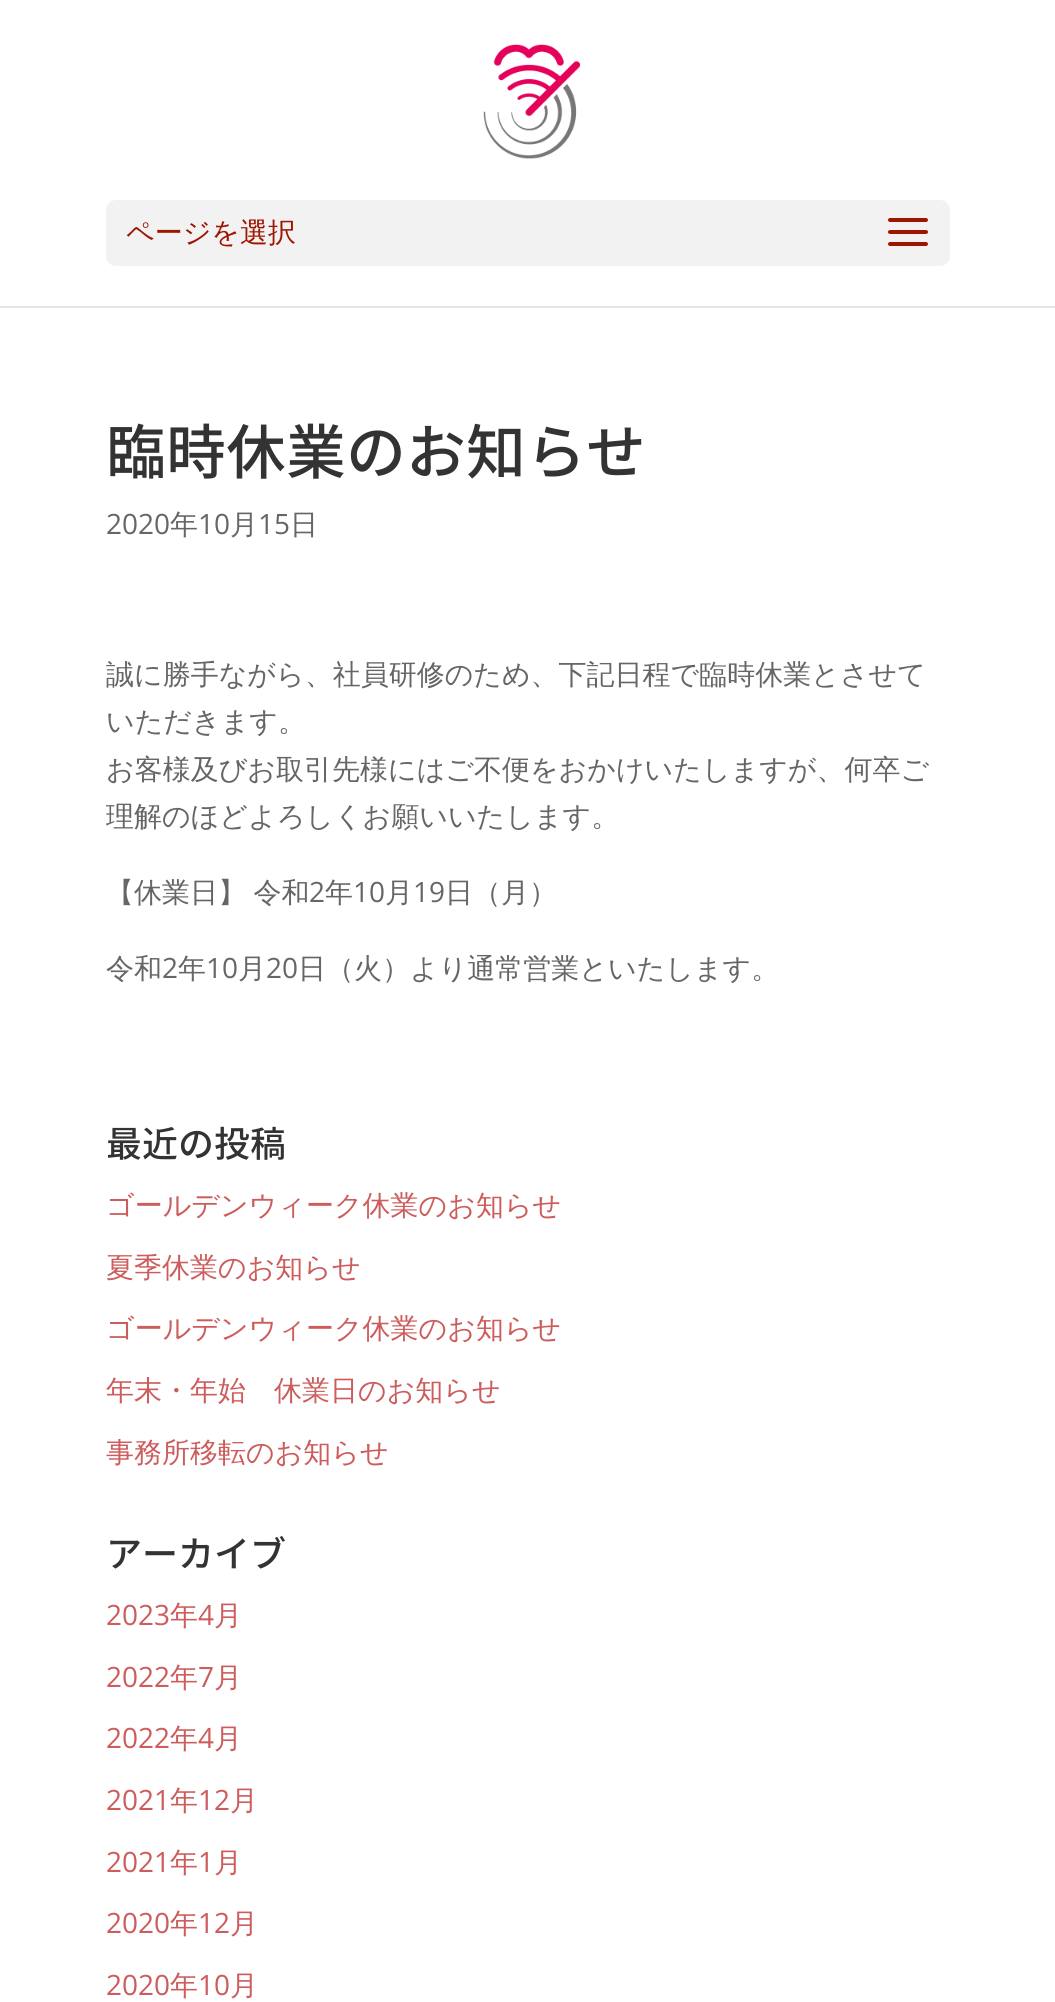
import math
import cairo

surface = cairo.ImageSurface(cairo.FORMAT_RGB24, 1055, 2002)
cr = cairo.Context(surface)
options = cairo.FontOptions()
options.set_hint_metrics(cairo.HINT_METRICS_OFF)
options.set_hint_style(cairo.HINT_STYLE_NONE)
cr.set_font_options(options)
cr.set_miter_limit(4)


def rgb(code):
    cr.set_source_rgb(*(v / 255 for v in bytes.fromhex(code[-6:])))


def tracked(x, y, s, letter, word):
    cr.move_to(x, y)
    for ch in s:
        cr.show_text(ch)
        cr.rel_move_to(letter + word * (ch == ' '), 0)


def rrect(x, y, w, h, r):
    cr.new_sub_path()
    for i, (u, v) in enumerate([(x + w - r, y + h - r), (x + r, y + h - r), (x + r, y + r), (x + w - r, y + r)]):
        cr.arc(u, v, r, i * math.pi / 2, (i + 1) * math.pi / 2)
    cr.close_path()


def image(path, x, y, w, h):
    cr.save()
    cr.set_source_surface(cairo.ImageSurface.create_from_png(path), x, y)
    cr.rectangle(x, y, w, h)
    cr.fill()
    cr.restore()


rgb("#ffffff")
cr.paint()
rgb("#e6e6e6")
cr.rectangle(0, 306, 1055, 2)
cr.fill()
image("img/1.png", 483, 44, 97, 115)
rgb("#f2f2f2")
rrect(106, 200, 844, 66, 10)
cr.fill()
image("img/2.png", 888, 218, 40, 28)
cr.select_font_face("WenQuanYi Zen Hei Medium")
cr.set_font_size(28)
rgb("#9e1500")
cr.move_to(126, 242)
cr.show_text("ページを選択")
cr.select_font_face("Noto Sans JP Medium")
cr.set_font_size(60)
rgb("#333333")
cr.move_to(106, 474)
cr.show_text("臨時休業のお知らせ")
cr.select_font_face("Open Sans")
cr.set_font_size(28)
rgb("#666666")
cr.move_to(106, 534)
cr.show_text("2020")
cr.select_font_face("WenQuanYi Zen Hei Medium")
cr.move_to(170, 534)
cr.show_text("年")
cr.select_font_face("Open Sans")
cr.move_to(198, 534)
cr.show_text("10")
cr.select_font_face("WenQuanYi Zen Hei Medium")
cr.move_to(230, 534)
cr.show_text("月")
cr.select_font_face("Open Sans")
cr.move_to(258, 534)
cr.show_text("15")
cr.select_font_face("WenQuanYi Zen Hei Medium")
for x, y, s in [
    (290, 534, "日"),
    (106, 684, "誠に勝手ながら、社員研修のため、下記日程で臨時休業とさせて"),
    (106, 731, "いただきます。"),
    (106, 779, "お客様及びお取引先様にはご不便をおかけいたしますが、何卒ご"),
    (106, 826, "理解のほどよろしくお願いいたします。"),
]:
    cr.move_to(x, y)
    cr.show_text(s)
tracked(106, 902, "【休業日】 令和", 0, -1)
cr.select_font_face("Open Sans")
cr.move_to(309, 902)
cr.show_text("2")
cr.select_font_face("WenQuanYi Zen Hei Medium")
cr.move_to(325, 902)
cr.show_text("年")
cr.select_font_face("Open Sans")
cr.move_to(353, 902)
cr.show_text("10")
cr.select_font_face("WenQuanYi Zen Hei Medium")
cr.move_to(385, 902)
cr.show_text("月")
cr.select_font_face("Open Sans")
cr.move_to(413, 902)
cr.show_text("19")
cr.select_font_face("WenQuanYi Zen Hei Medium")
cr.move_to(445, 902)
cr.show_text("日（月）")
cr.move_to(106, 978)
cr.show_text("令和")
cr.select_font_face("Open Sans")
cr.move_to(162, 978)
cr.show_text("2")
cr.select_font_face("WenQuanYi Zen Hei Medium")
cr.move_to(178, 978)
cr.show_text("年")
cr.select_font_face("Open Sans")
cr.move_to(206, 978)
cr.show_text("10")
cr.select_font_face("WenQuanYi Zen Hei Medium")
cr.move_to(238, 978)
cr.show_text("月")
cr.select_font_face("Open Sans")
cr.move_to(266, 978)
cr.show_text("20")
cr.select_font_face("WenQuanYi Zen Hei Medium")
cr.move_to(298, 978)
cr.show_text("日（火）より通常営業といたします。")
cr.select_font_face("Noto Sans JP Medium")
cr.set_font_size(36)
rgb("#333333")
cr.move_to(106, 1157)
cr.show_text("最近の投稿")
cr.select_font_face("WenQuanYi Zen Hei Medium")
cr.set_font_size(28)
rgb("#cd5c5c")
for x, y, s in [
    (106, 1215, "ゴールデンウィーク休業のお知らせ"),
    (106, 1277, "夏季休業のお知らせ"),
    (106, 1338, "ゴールデンウィーク休業のお知らせ"),
    (106, 1400, "年末・年始　休業日のお知らせ"),
    (106, 1462, "事務所移転のお知らせ"),
]:
    cr.move_to(x, y)
    cr.show_text(s)
cr.select_font_face("Noto Sans JP Medium")
cr.set_font_size(36)
rgb("#333333")
cr.move_to(106, 1567)
cr.show_text("アーカイブ")
cr.select_font_face("Open Sans")
cr.set_font_size(28)
rgb("#cd5c5c")
cr.move_to(106, 1625)
cr.show_text("2023")
cr.select_font_face("WenQuanYi Zen Hei Medium")
cr.move_to(170, 1625)
cr.show_text("年")
cr.select_font_face("Open Sans")
cr.move_to(198, 1625)
cr.show_text("4")
cr.select_font_face("WenQuanYi Zen Hei Medium")
cr.move_to(214, 1625)
cr.show_text("月")
cr.select_font_face("Open Sans")
cr.move_to(106, 1687)
cr.show_text("2022")
cr.select_font_face("WenQuanYi Zen Hei Medium")
cr.move_to(170, 1687)
cr.show_text("年")
cr.select_font_face("Open Sans")
cr.move_to(198, 1687)
cr.show_text("7")
cr.select_font_face("WenQuanYi Zen Hei Medium")
cr.move_to(214, 1687)
cr.show_text("月")
cr.select_font_face("Open Sans")
cr.move_to(106, 1748)
cr.show_text("2022")
cr.select_font_face("WenQuanYi Zen Hei Medium")
cr.move_to(170, 1748)
cr.show_text("年")
cr.select_font_face("Open Sans")
cr.move_to(198, 1748)
cr.show_text("4")
cr.select_font_face("WenQuanYi Zen Hei Medium")
cr.move_to(214, 1748)
cr.show_text("月")
cr.select_font_face("Open Sans")
cr.move_to(106, 1810)
cr.show_text("2021")
cr.select_font_face("WenQuanYi Zen Hei Medium")
cr.move_to(170, 1810)
cr.show_text("年")
cr.select_font_face("Open Sans")
cr.move_to(198, 1810)
cr.show_text("12")
cr.select_font_face("WenQuanYi Zen Hei Medium")
cr.move_to(230, 1810)
cr.show_text("月")
cr.select_font_face("Open Sans")
cr.move_to(106, 1872)
cr.show_text("2021")
cr.select_font_face("WenQuanYi Zen Hei Medium")
cr.move_to(170, 1872)
cr.show_text("年")
cr.select_font_face("Open Sans")
cr.move_to(198, 1872)
cr.show_text("1")
cr.select_font_face("WenQuanYi Zen Hei Medium")
cr.move_to(214, 1872)
cr.show_text("月")
cr.select_font_face("Open Sans")
cr.move_to(106, 1933)
cr.show_text("2020")
cr.select_font_face("WenQuanYi Zen Hei Medium")
cr.move_to(170, 1933)
cr.show_text("年")
cr.select_font_face("Open Sans")
cr.move_to(198, 1933)
cr.show_text("12")
cr.select_font_face("WenQuanYi Zen Hei Medium")
cr.move_to(230, 1933)
cr.show_text("月")
cr.select_font_face("Open Sans")
cr.move_to(106, 1995)
cr.show_text("2020")
cr.select_font_face("WenQuanYi Zen Hei Medium")
cr.move_to(170, 1995)
cr.show_text("年")
cr.select_font_face("Open Sans")
cr.move_to(198, 1995)
cr.show_text("10")
cr.select_font_face("WenQuanYi Zen Hei Medium")
cr.move_to(230, 1995)
cr.show_text("月")
surface.write_to_png("page.png")
